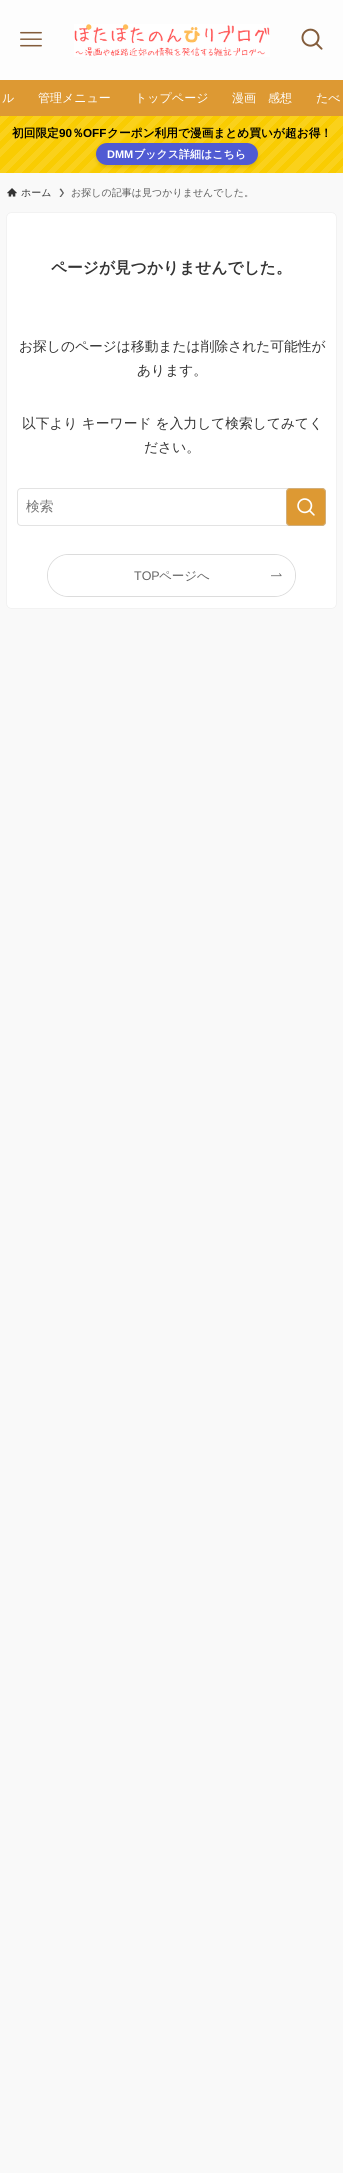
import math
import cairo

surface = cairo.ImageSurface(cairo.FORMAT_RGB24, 343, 2173)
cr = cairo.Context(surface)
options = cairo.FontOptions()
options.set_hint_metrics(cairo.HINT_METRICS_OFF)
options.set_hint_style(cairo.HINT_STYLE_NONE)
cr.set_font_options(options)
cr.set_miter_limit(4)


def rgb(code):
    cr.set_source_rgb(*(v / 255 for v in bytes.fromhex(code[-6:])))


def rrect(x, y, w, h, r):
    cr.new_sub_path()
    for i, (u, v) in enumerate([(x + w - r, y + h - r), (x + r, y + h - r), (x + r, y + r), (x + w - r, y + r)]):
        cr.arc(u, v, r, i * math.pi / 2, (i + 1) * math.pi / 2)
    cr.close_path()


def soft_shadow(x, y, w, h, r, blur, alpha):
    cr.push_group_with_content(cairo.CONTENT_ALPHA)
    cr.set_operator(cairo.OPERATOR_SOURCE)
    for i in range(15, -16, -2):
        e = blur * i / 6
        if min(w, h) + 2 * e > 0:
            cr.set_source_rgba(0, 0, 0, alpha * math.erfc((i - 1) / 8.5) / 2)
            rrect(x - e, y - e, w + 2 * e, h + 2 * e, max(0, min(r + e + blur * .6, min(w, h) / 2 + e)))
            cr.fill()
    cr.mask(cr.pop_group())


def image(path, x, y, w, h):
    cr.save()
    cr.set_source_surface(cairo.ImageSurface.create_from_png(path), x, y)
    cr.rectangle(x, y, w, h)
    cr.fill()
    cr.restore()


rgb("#f9f9f9")
cr.paint()
rgb("#fdfdfd")
cr.rectangle(0, 0, 343, 80)
cr.fill()
image("img/1.png", 20, 31, 22, 16)
image("img/2.png", 74, 24, 196, 33)
image("img/3.png", 301, 28, 22, 22)
rgb("#dd9933")
cr.rectangle(0, 80, 343, 36)
cr.fill()
gradient = cairo.LinearGradient(272, 245, 68, 41)
gradient.add_color_stop_rgba(0, 0.98, 0.82, 0.106, 1)
gradient.add_color_stop_rgba(0.02, 0.98, 0.82, 0.106, 1)
gradient.add_color_stop_rgba(0.02, 0.976, 0.8, 0.008, 1)
gradient.add_color_stop_rgba(0.04, 0.976, 0.8, 0.008, 1)
gradient.add_color_stop_rgba(0.04, 0.98, 0.82, 0.106, 1)
gradient.add_color_stop_rgba(0.06, 0.98, 0.82, 0.106, 1)
gradient.add_color_stop_rgba(0.06, 0.976, 0.8, 0.008, 1)
gradient.add_color_stop_rgba(0.08, 0.976, 0.8, 0.008, 1)
gradient.add_color_stop_rgba(0.08, 0.98, 0.82, 0.106, 1)
gradient.add_color_stop_rgba(0.1, 0.98, 0.82, 0.106, 1)
gradient.add_color_stop_rgba(0.1, 0.976, 0.8, 0.008, 1)
gradient.add_color_stop_rgba(0.12, 0.976, 0.8, 0.008, 1)
gradient.add_color_stop_rgba(0.12, 0.98, 0.82, 0.106, 1)
gradient.add_color_stop_rgba(0.15, 0.98, 0.82, 0.106, 1)
gradient.add_color_stop_rgba(0.15, 0.976, 0.8, 0.008, 1)
gradient.add_color_stop_rgba(0.17, 0.976, 0.8, 0.008, 1)
gradient.add_color_stop_rgba(0.17, 0.98, 0.82, 0.106, 1)
gradient.add_color_stop_rgba(0.19, 0.98, 0.82, 0.106, 1)
gradient.add_color_stop_rgba(0.19, 0.976, 0.8, 0.008, 1)
gradient.add_color_stop_rgba(0.21, 0.976, 0.8, 0.008, 1)
gradient.add_color_stop_rgba(0.21, 0.98, 0.82, 0.106, 1)
gradient.add_color_stop_rgba(0.23, 0.98, 0.82, 0.106, 1)
gradient.add_color_stop_rgba(0.23, 0.976, 0.8, 0.008, 1)
gradient.add_color_stop_rgba(0.25, 0.976, 0.8, 0.008, 1)
gradient.add_color_stop_rgba(0.25, 0.98, 0.82, 0.106, 1)
gradient.add_color_stop_rgba(0.27, 0.98, 0.82, 0.106, 1)
gradient.add_color_stop_rgba(0.27, 0.976, 0.8, 0.008, 1)
gradient.add_color_stop_rgba(0.29, 0.976, 0.8, 0.008, 1)
gradient.add_color_stop_rgba(0.29, 0.98, 0.82, 0.106, 1)
gradient.add_color_stop_rgba(0.31, 0.98, 0.82, 0.106, 1)
gradient.add_color_stop_rgba(0.31, 0.976, 0.8, 0.008, 1)
gradient.add_color_stop_rgba(0.33, 0.976, 0.8, 0.008, 1)
gradient.add_color_stop_rgba(0.33, 0.98, 0.82, 0.106, 1)
gradient.add_color_stop_rgba(0.35, 0.98, 0.82, 0.106, 1)
gradient.add_color_stop_rgba(0.35, 0.976, 0.8, 0.008, 1)
gradient.add_color_stop_rgba(0.38, 0.976, 0.8, 0.008, 1)
gradient.add_color_stop_rgba(0.38, 0.98, 0.82, 0.106, 1)
gradient.add_color_stop_rgba(0.4, 0.98, 0.82, 0.106, 1)
gradient.add_color_stop_rgba(0.4, 0.976, 0.8, 0.008, 1)
gradient.add_color_stop_rgba(0.42, 0.976, 0.8, 0.008, 1)
gradient.add_color_stop_rgba(0.42, 0.98, 0.82, 0.106, 1)
gradient.add_color_stop_rgba(0.44, 0.98, 0.82, 0.106, 1)
gradient.add_color_stop_rgba(0.44, 0.976, 0.8, 0.008, 1)
gradient.add_color_stop_rgba(0.46, 0.976, 0.8, 0.008, 1)
gradient.add_color_stop_rgba(0.46, 0.98, 0.82, 0.106, 1)
gradient.add_color_stop_rgba(0.48, 0.98, 0.82, 0.106, 1)
gradient.add_color_stop_rgba(0.48, 0.976, 0.8, 0.008, 1)
gradient.add_color_stop_rgba(0.5, 0.976, 0.8, 0.008, 1)
gradient.add_color_stop_rgba(0.5, 0.98, 0.82, 0.106, 1)
gradient.add_color_stop_rgba(0.52, 0.98, 0.82, 0.106, 1)
gradient.add_color_stop_rgba(0.52, 0.976, 0.8, 0.008, 1)
gradient.add_color_stop_rgba(0.54, 0.976, 0.8, 0.008, 1)
gradient.add_color_stop_rgba(0.54, 0.98, 0.82, 0.106, 1)
gradient.add_color_stop_rgba(0.56, 0.98, 0.82, 0.106, 1)
gradient.add_color_stop_rgba(0.56, 0.976, 0.8, 0.008, 1)
gradient.add_color_stop_rgba(0.58, 0.976, 0.8, 0.008, 1)
gradient.add_color_stop_rgba(0.58, 0.98, 0.82, 0.106, 1)
gradient.add_color_stop_rgba(0.6, 0.98, 0.82, 0.106, 1)
gradient.add_color_stop_rgba(0.6, 0.976, 0.8, 0.008, 1)
gradient.add_color_stop_rgba(0.62, 0.976, 0.8, 0.008, 1)
gradient.add_color_stop_rgba(0.63, 0.98, 0.82, 0.106, 1)
gradient.add_color_stop_rgba(0.65, 0.98, 0.82, 0.106, 1)
gradient.add_color_stop_rgba(0.65, 0.976, 0.8, 0.008, 1)
gradient.add_color_stop_rgba(0.67, 0.976, 0.8, 0.008, 1)
gradient.add_color_stop_rgba(0.67, 0.98, 0.82, 0.106, 1)
gradient.add_color_stop_rgba(0.69, 0.98, 0.82, 0.106, 1)
gradient.add_color_stop_rgba(0.69, 0.976, 0.8, 0.008, 1)
gradient.add_color_stop_rgba(0.71, 0.976, 0.8, 0.008, 1)
gradient.add_color_stop_rgba(0.71, 0.98, 0.82, 0.106, 1)
gradient.add_color_stop_rgba(0.73, 0.98, 0.82, 0.106, 1)
gradient.add_color_stop_rgba(0.73, 0.976, 0.8, 0.008, 1)
gradient.add_color_stop_rgba(0.75, 0.976, 0.8, 0.008, 1)
gradient.add_color_stop_rgba(0.75, 0.98, 0.82, 0.106, 1)
gradient.add_color_stop_rgba(0.77, 0.98, 0.82, 0.106, 1)
gradient.add_color_stop_rgba(0.77, 0.976, 0.8, 0.008, 1)
gradient.add_color_stop_rgba(0.79, 0.976, 0.8, 0.008, 1)
gradient.add_color_stop_rgba(0.79, 0.98, 0.82, 0.106, 1)
gradient.add_color_stop_rgba(0.81, 0.98, 0.82, 0.106, 1)
gradient.add_color_stop_rgba(0.81, 0.976, 0.8, 0.008, 1)
gradient.add_color_stop_rgba(0.83, 0.976, 0.8, 0.008, 1)
gradient.add_color_stop_rgba(0.83, 0.98, 0.82, 0.106, 1)
gradient.add_color_stop_rgba(0.85, 0.98, 0.82, 0.106, 1)
gradient.add_color_stop_rgba(0.85, 0.976, 0.8, 0.008, 1)
gradient.add_color_stop_rgba(0.88, 0.976, 0.8, 0.008, 1)
gradient.add_color_stop_rgba(0.88, 0.98, 0.82, 0.106, 1)
gradient.add_color_stop_rgba(0.9, 0.98, 0.82, 0.106, 1)
gradient.add_color_stop_rgba(0.9, 0.976, 0.8, 0.008, 1)
gradient.add_color_stop_rgba(0.92, 0.976, 0.8, 0.008, 1)
gradient.add_color_stop_rgba(0.92, 0.98, 0.82, 0.106, 1)
gradient.add_color_stop_rgba(0.94, 0.98, 0.82, 0.106, 1)
gradient.add_color_stop_rgba(0.94, 0.976, 0.8, 0.008, 1)
gradient.add_color_stop_rgba(0.96, 0.976, 0.8, 0.008, 1)
gradient.add_color_stop_rgba(0.96, 0.98, 0.82, 0.106, 1)
gradient.add_color_stop_rgba(0.98, 0.98, 0.82, 0.106, 1)
gradient.add_color_stop_rgba(0.98, 0.976, 0.8, 0.008, 1)
gradient.add_color_stop_rgba(1, 0.976, 0.8, 0.008, 1)
cr.set_source(gradient)
cr.rectangle(0, 116, 343, 57)
cr.fill()
rgb("#000000")
soft_shadow(96, 145, 162, 22, 11, 2, 0.12)
rgb("#505bd3")
rrect(96, 143, 162, 22, 11)
cr.fill()
image("img/4.png", 7, 188, 10, 9)
rgb("#5b5b5b")
cr.new_path()
cr.move_to(61, 188.5)
cr.line_to(59.5, 189)
cr.line_to(62.5, 193)
cr.line_to(59.5, 197)
cr.line_to(61, 197)
cr.line_to(64, 193)
cr.close_path()
cr.fill()
rgb("#000000")
soft_shadow(7, 213, 329, 395, 4, 0.5, 0.12)
rgb("#ffffff")
rrect(7, 213, 329, 395, 4)
cr.fill()
rrect(17.5, 488.5, 308, 37, 3.5)
rgb("#e3e3e3")
cr.set_line_width(1)
cr.stroke()
rgb("#dd9933")
rrect(286, 488, 40, 38, 4)
cr.fill()
rrect(286.5, 488.5, 39, 37, 3.5)
cr.set_source_rgba(0.78, 0.78, 0.78, 0.5)
cr.stroke()
image("img/5.png", 297, 498, 18, 18)
rrect(47.5, 554.5, 248, 42, 21)
rgb("#dcdcdc")
cr.stroke()
rgb("#ffffff")
rrect(48, 555, 247, 41, 20.5)
cr.fill()
image("img/6.png", 271, 573, 11, 4)
cr.select_font_face("WenQuanYi Zen Hei Medium")
cr.set_font_size(12)
for x, y, s in [
    (2, 102, "ル"),
    (38, 102, "管理メニュー"),
    (135, 102, "トップページ"),
    (232, 102, "漫画　感想"),
    (316, 102, "たべ"),
]:
    cr.move_to(x, y)
    cr.show_text(s)
cr.select_font_face("WenQuanYi Zen Hei", cairo.FONT_SLANT_NORMAL, cairo.FONT_WEIGHT_BOLD)
cr.set_font_size(11.7)
rgb("#000000")
cr.move_to(12, 137)
cr.show_text("初回限定")
cr.select_font_face("Liberation Sans", cairo.FONT_SLANT_NORMAL, cairo.FONT_WEIGHT_BOLD)
cr.move_to(59, 137)
cr.show_text("90")
cr.select_font_face("WenQuanYi Zen Hei", cairo.FONT_SLANT_NORMAL, cairo.FONT_WEIGHT_BOLD)
cr.move_to(72, 137)
cr.show_text("％")
cr.select_font_face("Liberation Sans", cairo.FONT_SLANT_NORMAL, cairo.FONT_WEIGHT_BOLD)
cr.move_to(83, 137)
cr.show_text("OFF")
cr.select_font_face("WenQuanYi Zen Hei", cairo.FONT_SLANT_NORMAL, cairo.FONT_WEIGHT_BOLD)
cr.move_to(107, 137)
cr.show_text("クーポン利用で漫画まとめ買いが超お得！")
cr.select_font_face("Liberation Sans", cairo.FONT_SLANT_NORMAL, cairo.FONT_WEIGHT_BOLD)
cr.set_font_size(11)
rgb("#ffffff")
cr.move_to(107, 158)
cr.show_text("DMM")
cr.select_font_face("WenQuanYi Zen Hei", cairo.FONT_SLANT_NORMAL, cairo.FONT_WEIGHT_BOLD)
cr.move_to(134, 158)
cr.show_text("ブックス詳細はこちら")
cr.select_font_face("WenQuanYi Zen Hei Medium")
cr.set_font_size(10)
rgb("#333333")
cr.move_to(21, 196)
cr.show_text("ホーム")
rgb("#5b5b5b")
cr.move_to(71, 196)
cr.show_text("お探しの記事は見つかりませんでした。")
cr.select_font_face("WenQuanYi Zen Hei", cairo.FONT_SLANT_NORMAL, cairo.FONT_WEIGHT_BOLD)
cr.set_font_size(15.75)
rgb("#333333")
cr.move_to(51, 273)
cr.show_text("ページが見つかりませんでした。")
cr.select_font_face("WenQuanYi Zen Hei Medium")
cr.set_font_size(13.75)
for x, y, s in [
    (19, 351, "お探しのページは移動または削除された可能性が"),
    (137, 375, "あります。"),
    (22, 428, "以下より キーワード を入力して検索してみてく"),
    (144, 452, "ださい。"),
]:
    cr.move_to(x, y)
    cr.show_text(s)
rgb("#757575")
cr.move_to(26, 511)
cr.show_text("検索")
cr.select_font_face("Liberation Sans")
cr.set_font_size(12.5)
rgb("#666666")
cr.move_to(134, 580)
cr.show_text("TOP")
cr.select_font_face("WenQuanYi Zen Hei Medium")
cr.move_to(159, 580)
cr.show_text("ページへ")
surface.write_to_png("page.png")
